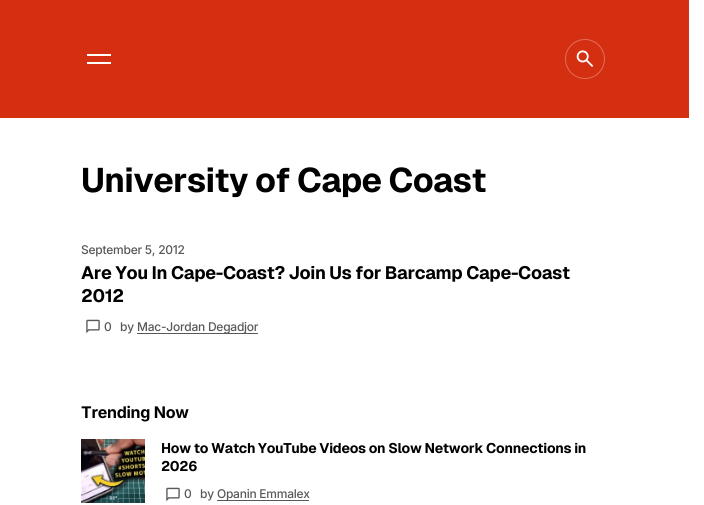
import math
import cairo

surface = cairo.ImageSurface(cairo.FORMAT_RGB24, 704, 505)
cr = cairo.Context(surface)
options = cairo.FontOptions()
options.set_hint_metrics(cairo.HINT_METRICS_OFF)
options.set_hint_style(cairo.HINT_STYLE_NONE)
cr.set_font_options(options)
cr.set_miter_limit(4)


def rgb(code):
    cr.set_source_rgb(*(v / 255 for v in bytes.fromhex(code[-6:])))


def tracked(x, y, s, letter, word):
    cr.move_to(x, y)
    for ch in s:
        cr.show_text(ch)
        cr.rel_move_to(letter + word * (ch == ' '), 0)


def image(path, x, y, w, h):
    cr.save()
    cr.set_source_surface(cairo.ImageSurface.create_from_png(path), x, y)
    cr.rectangle(x, y, w, h)
    cr.fill()
    cr.restore()


rgb("#ffffff")
cr.paint()
for x, y, w, h, color in [
    (0, 0, 689, 118, "#d52f11"),
    (87, 54, 24, 2, "#ffffff"),
    (87, 62, 24, 2, "#ffffff"),
]:
    rgb(color)
    cr.rectangle(x, y, w, h)
    cr.fill()
cr.arc(585, 59, 19.5, 0, 2 * math.pi)
rgb("#e26d58")
cr.set_line_width(1)
cr.stroke()
image("img/1.png", 576, 50, 18, 17)
image("img/2.png", 86, 319, 14, 15)
rgb("#585858")
cr.rectangle(137, 333, 121, 1)
cr.fill()
image("img/3.png", 81, 439, 64, 64)
image("img/2.png", 166, 487, 14, 15)
cr.rectangle(217, 500, 92, 1)
cr.fill()
cr.select_font_face("Geist", cairo.FONT_SLANT_NORMAL, cairo.FONT_WEIGHT_BOLD)
cr.set_font_size(34)
rgb("#000000")
tracked(81, 192, "University of Cape Coast", -0.7, 0)
cr.select_font_face("Inter Medium")
cr.set_font_size(12)
rgb("#585858")
tracked(81, 254, "September 5, 2012", -0.25, 0)
cr.select_font_face("Geist", cairo.FONT_SLANT_NORMAL, cairo.FONT_WEIGHT_BOLD)
cr.set_font_size(18)
rgb("#000000")
tracked(81, 279, "Are You In Cape-Coast? Join Us for Barcamp Cape-Coast", -0.35, 0)
tracked(81, 302, "2012", -0.35, 0)
cr.select_font_face("Inter Medium")
cr.set_font_size(12)
rgb("#585858")
for x, y, s in [
    (104, 331, "0"),
    (120, 331, "by"),
    (137, 331, "Mac-Jordan Degadjor"),
]:
    tracked(x, y, s, -0.25, 0)
cr.select_font_face("Inter", cairo.FONT_SLANT_NORMAL, cairo.FONT_WEIGHT_BOLD)
cr.set_font_size(16)
rgb("#000000")
tracked(81, 418, "Trending Now", -0.25, 0)
cr.select_font_face("Geist", cairo.FONT_SLANT_NORMAL, cairo.FONT_WEIGHT_BOLD)
cr.set_font_size(14)
tracked(161, 453, "How to Watch YouTube Videos on Slow Network Connections in", -0.28, 0)
tracked(161, 471, "2026", -0.28, 0)
cr.select_font_face("Inter Medium")
cr.set_font_size(12)
rgb("#585858")
for x, y, s in [
    (184, 498, "0"),
    (200, 498, "by"),
    (217, 498, "Opanin Emmalex"),
]:
    tracked(x, y, s, -0.25, 0)
surface.write_to_png("page.png")
